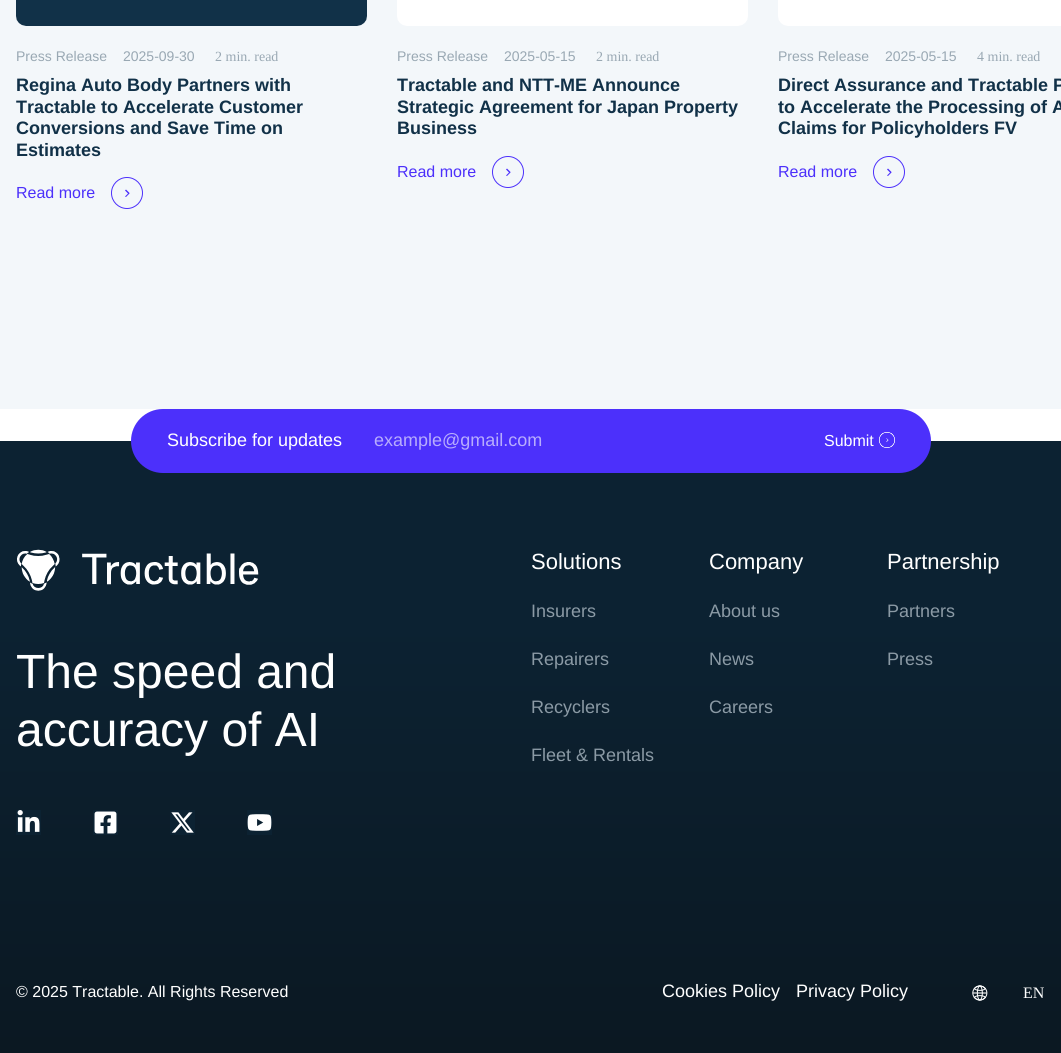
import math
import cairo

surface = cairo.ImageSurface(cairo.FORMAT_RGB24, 1061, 1053)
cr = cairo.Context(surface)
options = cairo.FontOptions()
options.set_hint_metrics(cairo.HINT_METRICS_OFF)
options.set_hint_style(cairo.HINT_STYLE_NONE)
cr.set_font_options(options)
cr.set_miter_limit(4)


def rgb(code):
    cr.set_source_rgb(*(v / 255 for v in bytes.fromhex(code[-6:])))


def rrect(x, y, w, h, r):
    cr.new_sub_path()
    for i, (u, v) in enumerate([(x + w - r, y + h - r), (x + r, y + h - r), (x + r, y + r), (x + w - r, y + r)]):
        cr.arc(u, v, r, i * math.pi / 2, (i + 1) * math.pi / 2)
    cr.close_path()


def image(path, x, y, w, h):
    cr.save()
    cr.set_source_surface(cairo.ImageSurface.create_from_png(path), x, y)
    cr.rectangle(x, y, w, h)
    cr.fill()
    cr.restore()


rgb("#ffffff")
cr.paint()
rgb("#f3f7fa")
cr.rectangle(0, 0, 1061, 409)
cr.fill()
image("img/1.png", 16, 0, 351, 26)
cr.arc(127, 193, 15.5, 0, 2 * math.pi)
rgb("#4c30fb")
cr.set_line_width(1)
cr.stroke()
cr.set_fill_rule(cairo.FILL_RULE_EVEN_ODD)
cr.new_path()
cr.move_to(126, 189.5)
cr.line_to(129.5, 193)
cr.line_to(129.5, 193.5)
cr.line_to(126, 197)
cr.line_to(125, 196.5)
cr.line_to(128, 193.5)
cr.line_to(125, 190.5)
cr.close_path()
cr.fill()
image("img/2.png", 397, 0, 351, 26)
cr.arc(508, 172, 15.5, 0, 2 * math.pi)
cr.stroke()
cr.new_path()
cr.move_to(507, 168.5)
cr.line_to(510.5, 172)
cr.line_to(510.5, 172.5)
cr.line_to(507, 176)
cr.line_to(506, 175.5)
cr.line_to(509, 172.5)
cr.line_to(506, 169.5)
cr.close_path()
cr.fill()
image("img/3.png", 778, 0, 283, 26)
cr.arc(889, 172, 15.5, 0, 2 * math.pi)
cr.stroke()
cr.new_path()
cr.move_to(888, 168.5)
cr.line_to(891.5, 172)
cr.line_to(891.5, 172.5)
cr.line_to(888, 176)
cr.line_to(887, 175.5)
cr.line_to(890, 172.5)
cr.line_to(887, 169.5)
cr.close_path()
cr.fill()
gradient = cairo.LinearGradient(531, 441, 531, 1053)
gradient.add_color_stop_rgba(0.3, 0.047, 0.133, 0.196, 1)
gradient.add_color_stop_rgba(1, 0.043, 0.094, 0.133, 1)
cr.set_source(gradient)
cr.rectangle(0, 441, 1061, 612)
cr.fill()
rgb("#4c30fb")
rrect(131, 409, 800, 64, 32)
cr.fill()
image("img/4.png", 879, 432, 16, 16)
image("img/5.png", 17, 549, 242, 42)
rgb("#0c2232")
cr.rectangle(16, 810, 25, 25)
cr.fill()
image("img/6.png", 17, 810, 23, 22)
cr.rectangle(93, 810, 25, 25)
cr.fill()
image("img/7.png", 94, 811, 23, 23)
cr.rectangle(170, 810, 25, 25)
cr.fill()
image("img/8.png", 171, 812, 23, 21)
cr.rectangle(247, 810, 25, 25)
cr.fill()
image("img/9.png", 247, 814, 25, 17)
image("img/10.png", 972, 985, 16, 16)
cr.select_font_face("Liberation Sans")
cr.set_font_size(14)
rgb("#99a8b3")
cr.move_to(16, 61)
cr.show_text("Press Release")
cr.move_to(123, 61)
cr.show_text("2025-09-30")
cr.select_font_face("Liberation Serif")
cr.move_to(215, 61)
cr.show_text("2 min. read")
cr.select_font_face("Liberation Sans", cairo.FONT_SLANT_NORMAL, cairo.FONT_WEIGHT_BOLD)
cr.set_font_size(18)
rgb("#113148")
for x, y, s in [
    (16, 91, "Regina Auto Body Partners with"),
    (16, 113, "Tractable to Accelerate Customer"),
    (16, 134, "Conversions and Save Time on"),
    (16, 156, "Estimates"),
]:
    cr.move_to(x, y)
    cr.show_text(s)
cr.select_font_face("Liberation Sans")
cr.set_font_size(16)
rgb("#4c30fb")
cr.move_to(16, 198)
cr.show_text("Read more")
cr.set_font_size(14)
rgb("#99a8b3")
cr.move_to(397, 61)
cr.show_text("Press Release")
cr.move_to(504, 61)
cr.show_text("2025-05-15")
cr.select_font_face("Liberation Serif")
cr.move_to(596, 61)
cr.show_text("2 min. read")
cr.select_font_face("Liberation Sans", cairo.FONT_SLANT_NORMAL, cairo.FONT_WEIGHT_BOLD)
cr.set_font_size(18)
rgb("#113148")
for x, y, s in [
    (397, 91, "Tractable and NTT-ME Announce"),
    (397, 113, "Strategic Agreement for Japan Property"),
    (397, 134, "Business"),
]:
    cr.move_to(x, y)
    cr.show_text(s)
cr.select_font_face("Liberation Sans")
cr.set_font_size(16)
rgb("#4c30fb")
cr.move_to(397, 177)
cr.show_text("Read more")
cr.set_font_size(14)
rgb("#99a8b3")
cr.move_to(778, 61)
cr.show_text("Press Release")
cr.move_to(885, 61)
cr.show_text("2025-05-15")
cr.select_font_face("Liberation Serif")
cr.move_to(977, 61)
cr.show_text("4 min. read")
cr.select_font_face("Liberation Sans", cairo.FONT_SLANT_NORMAL, cairo.FONT_WEIGHT_BOLD)
cr.set_font_size(18)
rgb("#113148")
for x, y, s in [
    (778, 91, "Direct Assurance and Tractable P"),
    (778, 113, "to Accelerate the Processing of A"),
    (778, 134, "Claims for Policyholders FV"),
]:
    cr.move_to(x, y)
    cr.show_text(s)
cr.select_font_face("Liberation Sans")
cr.set_font_size(16)
rgb("#4c30fb")
cr.move_to(778, 177)
cr.show_text("Read more")
cr.set_font_size(18)
rgb("#ffffff")
cr.move_to(167, 446)
cr.show_text("Subscribe for updates")
rgb("#b7acfd")
cr.move_to(374, 446)
cr.show_text("example@gmail.com")
cr.set_font_size(16)
rgb("#ffffff")
cr.move_to(824, 446)
cr.show_text("Submit")
cr.set_font_size(48)
cr.move_to(16, 688)
cr.show_text("The speed and")
cr.move_to(16, 746)
cr.show_text("accuracy of AI")
cr.set_font_size(22)
cr.move_to(531, 569)
cr.show_text("Solutions")
cr.set_font_size(18)
rgb("#8b9aa5")
for x, y, s in [
    (531, 617, "Insurers"),
    (531, 665, "Repairers"),
    (531, 713, "Recyclers"),
    (531, 761, "Fleet & Rentals"),
]:
    cr.move_to(x, y)
    cr.show_text(s)
cr.set_font_size(22)
rgb("#ffffff")
cr.move_to(709, 569)
cr.show_text("Company")
cr.set_font_size(18)
rgb("#8b9aa5")
for x, y, s in [
    (709, 617, "About us"),
    (709, 665, "News"),
    (709, 713, "Careers"),
]:
    cr.move_to(x, y)
    cr.show_text(s)
cr.set_font_size(22)
rgb("#ffffff")
cr.move_to(887, 569)
cr.show_text("Partnership")
cr.set_font_size(18)
rgb("#8b9aa5")
cr.move_to(887, 617)
cr.show_text("Partners")
cr.move_to(887, 665)
cr.show_text("Press")
cr.set_font_size(16)
rgb("#ffffff")
cr.move_to(16, 997)
cr.show_text("© 2025 Tractable. All Rights Reserved")
cr.set_font_size(18)
cr.move_to(662, 997)
cr.show_text("Cookies Policy")
cr.move_to(796, 997)
cr.show_text("Privacy Policy")
cr.select_font_face("Liberation Serif")
cr.set_font_size(16)
cr.move_to(1023, 998)
cr.show_text("EN")
surface.write_to_png("page.png")
